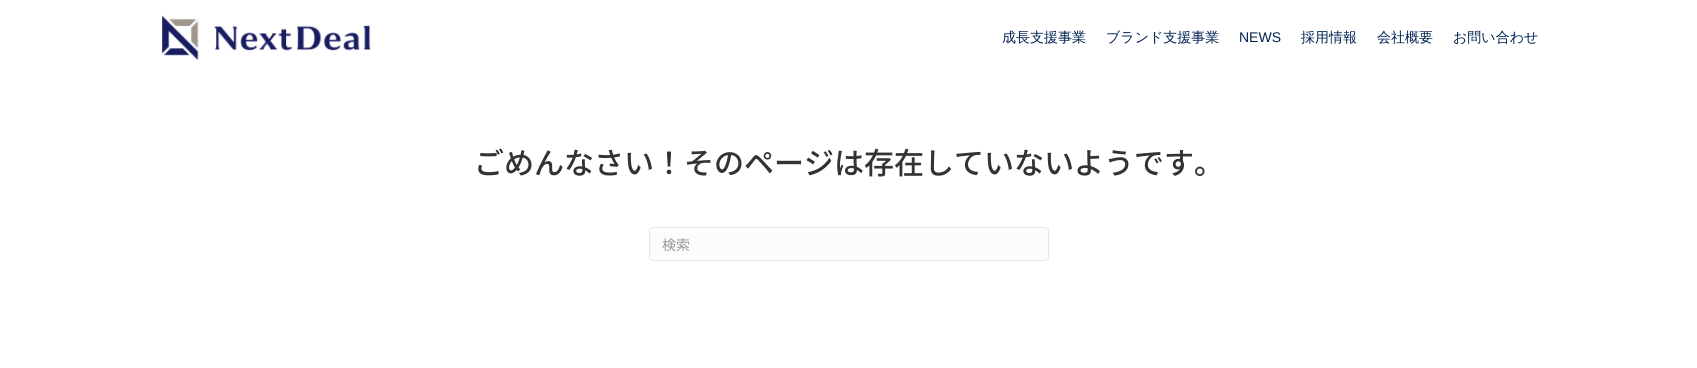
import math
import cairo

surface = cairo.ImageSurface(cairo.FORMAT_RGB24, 1697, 368)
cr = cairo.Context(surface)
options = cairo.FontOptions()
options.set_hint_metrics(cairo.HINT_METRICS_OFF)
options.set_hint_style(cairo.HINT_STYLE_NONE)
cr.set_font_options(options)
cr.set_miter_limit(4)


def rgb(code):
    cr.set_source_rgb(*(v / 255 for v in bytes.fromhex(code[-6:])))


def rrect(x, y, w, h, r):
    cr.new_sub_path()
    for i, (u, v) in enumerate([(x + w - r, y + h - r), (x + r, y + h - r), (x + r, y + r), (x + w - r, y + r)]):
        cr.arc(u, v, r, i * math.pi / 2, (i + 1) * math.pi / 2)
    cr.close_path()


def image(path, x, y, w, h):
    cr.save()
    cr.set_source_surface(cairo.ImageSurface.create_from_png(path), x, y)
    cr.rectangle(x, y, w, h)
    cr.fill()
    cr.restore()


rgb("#ffffff")
cr.paint()
image("img/1.png", 162, 15, 209, 46)
rgb("#fcfcfc")
rrect(649.5, 227.5, 399, 33, 3.5)
cr.fill_preserve()
rgb("#e6e6e6")
cr.set_line_width(1)
cr.stroke()
cr.select_font_face("WenQuanYi Zen Hei Medium")
cr.set_font_size(14)
rgb("#002353")
cr.move_to(1002, 42)
cr.show_text("成長支援事業")
cr.move_to(1106, 42)
cr.show_text("ブランド支援事業")
cr.select_font_face("Liberation Sans")
cr.move_to(1239, 42)
cr.show_text("NEWS")
cr.select_font_face("WenQuanYi Zen Hei Medium")
for x, y, s in [
    (1301, 42, "採用情報"),
    (1377, 42, "会社概要"),
    (1453, 42, "お問い合わせ"),
]:
    cr.move_to(x, y)
    cr.show_text(s)
cr.select_font_face("Noto Sans JP Medium")
cr.set_font_size(30)
rgb("#333333")
cr.move_to(474, 174)
cr.show_text("ごめんなさい！そのページは存在していないようです。")
cr.select_font_face("Noto Sans JP")
cr.set_font_size(14)
rgb("#979797")
cr.move_to(662, 250)
cr.show_text("検索")
surface.write_to_png("page.png")
